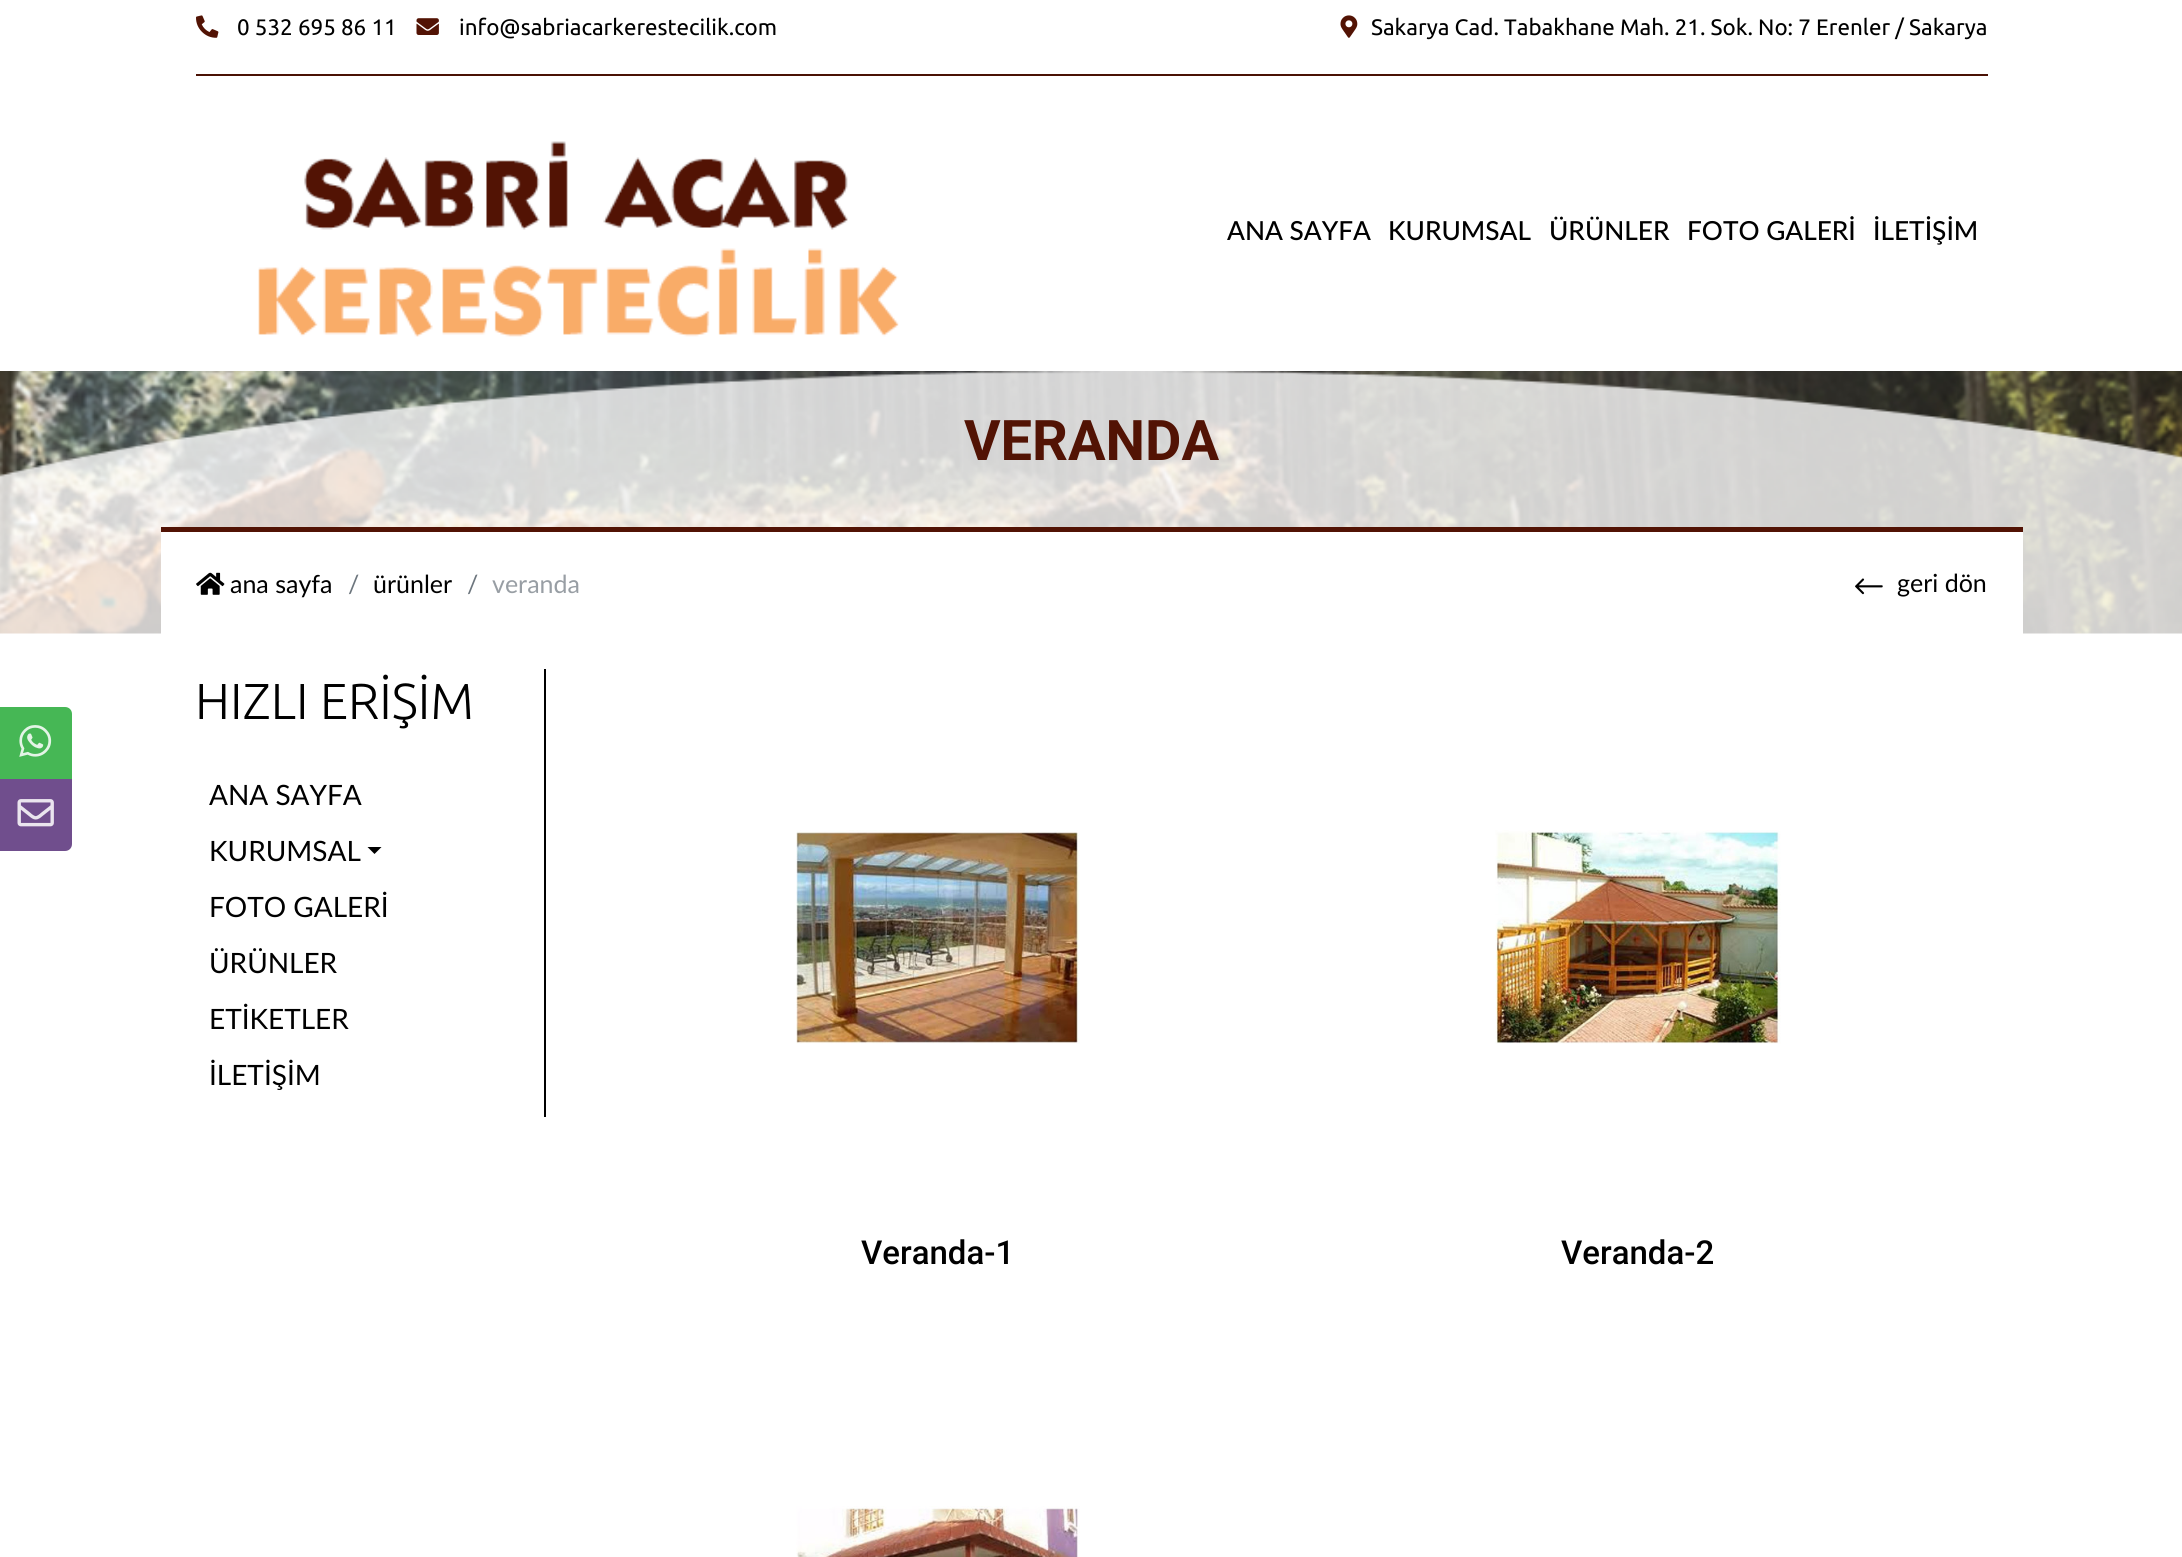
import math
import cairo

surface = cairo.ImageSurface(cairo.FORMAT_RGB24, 2182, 1557)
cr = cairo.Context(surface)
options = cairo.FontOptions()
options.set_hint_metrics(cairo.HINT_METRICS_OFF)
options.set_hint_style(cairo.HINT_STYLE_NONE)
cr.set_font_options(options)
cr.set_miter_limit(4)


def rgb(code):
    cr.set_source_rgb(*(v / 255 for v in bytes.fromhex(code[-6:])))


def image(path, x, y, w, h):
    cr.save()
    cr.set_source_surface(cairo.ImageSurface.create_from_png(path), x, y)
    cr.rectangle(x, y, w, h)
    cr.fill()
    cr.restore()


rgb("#ffffff")
cr.paint()
image("img/1.png", 196, 15, 23, 23)
image("img/2.png", 416, 18, 23, 17)
image("img/3.png", 1340, 15, 18, 23)
rgb("#4a1104")
cr.rectangle(196, 74, 1792, 2)
cr.fill()
image("img/4.png", 258, 141, 641, 196)
rgb("#46b755")
cr.new_path()
cr.move_to(0, 707)
cr.line_to(65, 707)
cr.curve_to(69, 707, 72, 710, 72, 714)
cr.line_to(72, 779)
cr.line_to(0, 779)
cr.close_path()
cr.fill()
image("img/5.png", 19, 725, 33, 32)
rgb("#704e8d")
cr.new_path()
cr.move_to(0, 779)
cr.line_to(72, 779)
cr.line_to(72, 844)
cr.curve_to(72, 848, 69, 851, 65, 851)
cr.line_to(0, 851)
cr.close_path()
cr.fill()
image("img/6.png", 17, 799, 37, 28)
image("img/7.png", 0, 371, 2182, 263)
rgb("#ffffff")
cr.rectangle(161, 532, 1862, 102)
cr.fill()
rgb("#521304")
cr.rectangle(161, 527, 1862, 5)
cr.fill()
image("img/8.png", 196, 572, 29, 23)
image("img/9.png", 1855, 578, 28, 17)
rgb("#000000")
cr.rectangle(544, 669, 2, 448)
cr.fill()
cr.new_path()
cr.move_to(367.5, 847)
cr.line_to(381.5, 847)
cr.line_to(374.5, 854)
cr.close_path()
cr.fill()
image("img/10.png", 796, 830, 284, 214)
image("img/11.png", 1495, 830, 286, 214)
image("img/12.png", 796, 1506, 284, 51)
cr.select_font_face("Ubuntu")
cr.set_font_size(22.4)
for x, y, s in [
    (237, 35, "0 532 695 86 11"),
    (459, 35, "info@sabriacarkerestecilik.com"),
    (1371, 35, "Sakarya Cad. Tabakhane Mah. 21. Sok. No: 7 Erenler / Sakarya"),
]:
    cr.move_to(x, y)
    cr.show_text(s)
cr.select_font_face("Lato Medium")
cr.set_font_size(26.25)
for x, y, s in [
    (1227, 240, "ANA SAYFA"),
    (1388, 240, "KURUMSAL"),
    (1549, 240, "ÜRÜNLER"),
    (1687, 240, "FOTO GALERİ"),
    (1873, 240, "İLETİŞİM"),
]:
    cr.move_to(x, y)
    cr.show_text(s)
cr.select_font_face("Roboto", cairo.FONT_SLANT_NORMAL, cairo.FONT_WEIGHT_BOLD)
cr.set_font_size(56)
rgb("#521304")
cr.move_to(964, 460)
cr.show_text("VERANDA")
cr.select_font_face("Lato")
cr.set_font_size(25)
rgb("#000000")
cr.move_to(230, 593)
cr.show_text("ana sayfa")
rgb("#6c757d")
cr.move_to(348, 593)
cr.show_text("/")
rgb("#000000")
cr.move_to(373, 593)
cr.show_text("ürünler")
rgb("#6c757d")
cr.move_to(467, 593)
cr.show_text("/")
rgb("#989ea4")
cr.move_to(492, 593)
cr.show_text("veranda")
rgb("#000000")
cr.move_to(1897, 592)
cr.show_text("geri dön")
cr.select_font_face("Ubuntu Light")
cr.set_font_size(50.5)
cr.move_to(195, 719)
cr.show_text("HIZLI ERİŞİM")
cr.select_font_face("Lato")
cr.set_font_size(28)
for x, y, s in [
    (209, 805, "ANA SAYFA"),
    (209, 861, "KURUMSAL"),
    (209, 917, "FOTO GALERİ"),
    (209, 973, "ÜRÜNLER"),
    (209, 1029, "ETİKETLER"),
    (209, 1085, "İLETİŞİM"),
]:
    cr.move_to(x, y)
    cr.show_text(s)
cr.select_font_face("Roboto Medium")
cr.set_font_size(33)
cr.move_to(861, 1264)
cr.show_text("Veranda-1")
cr.move_to(1561, 1264)
cr.show_text("Veranda-2")
surface.write_to_png("page.png")
